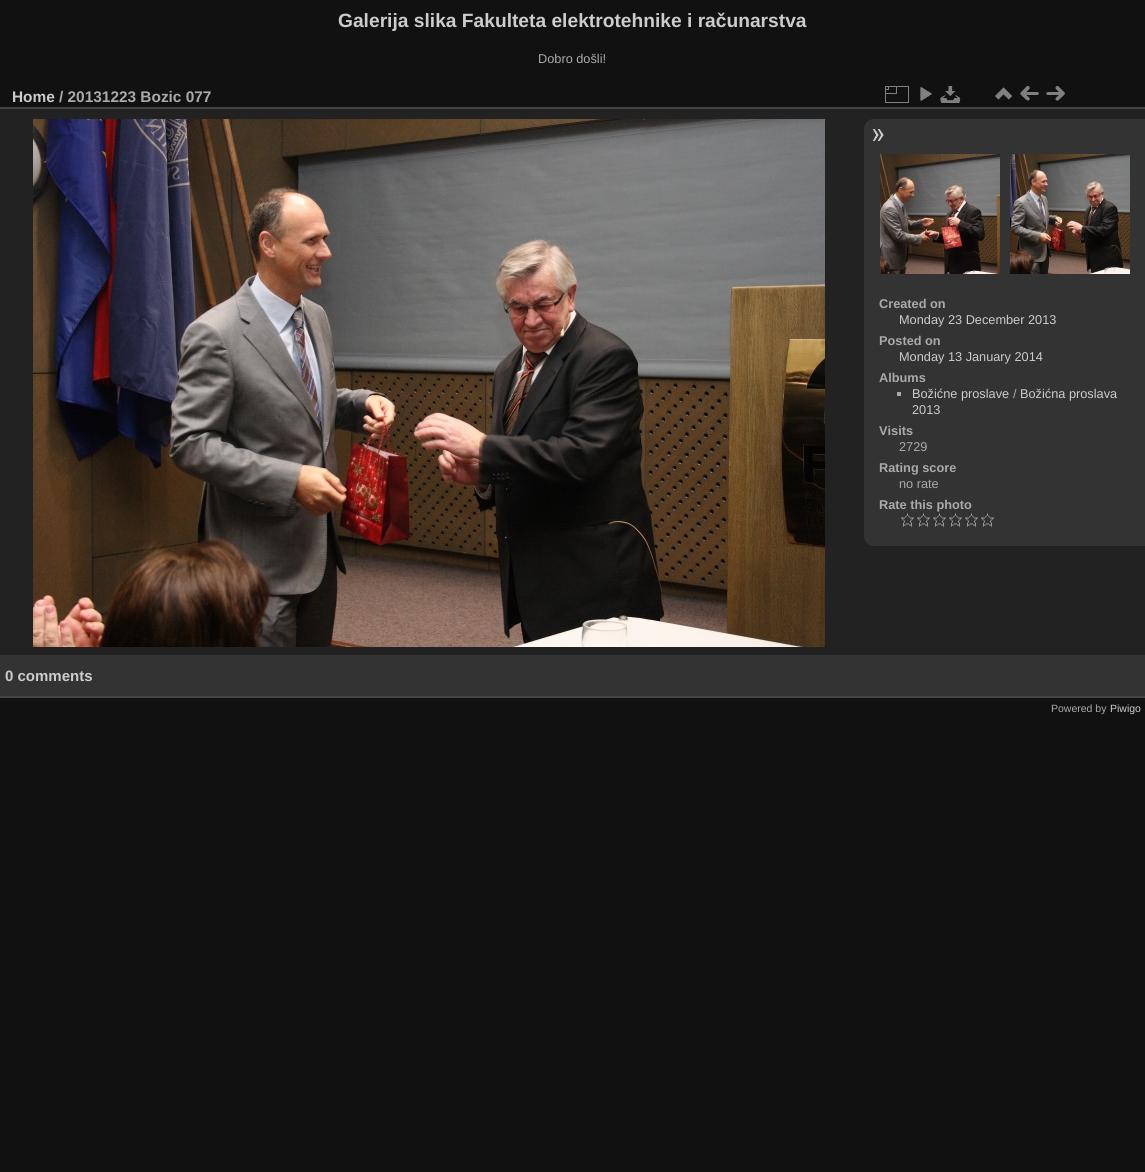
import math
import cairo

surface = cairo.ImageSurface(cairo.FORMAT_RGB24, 1145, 1172)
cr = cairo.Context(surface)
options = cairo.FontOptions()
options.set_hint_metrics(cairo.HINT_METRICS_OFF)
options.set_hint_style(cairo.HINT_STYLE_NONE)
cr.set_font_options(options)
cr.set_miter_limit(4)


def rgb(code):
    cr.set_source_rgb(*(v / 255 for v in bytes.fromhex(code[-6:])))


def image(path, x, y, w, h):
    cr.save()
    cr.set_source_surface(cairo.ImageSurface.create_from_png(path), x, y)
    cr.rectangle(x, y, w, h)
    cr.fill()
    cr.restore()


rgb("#111111")
cr.paint()
for x, y, w, h, color in [
    (0, 109, 1145, 546, "#222222"),
    (0, 696, 1145, 2, "#444444"),
    (0, 107, 1145, 2, "#444444"),
]:
    rgb(color)
    cr.rectangle(x, y, w, h)
    cr.fill()
image("img/1.png", 885, 86, 24, 17)
image("img/2.png", 920, 87, 12, 14)
image("img/3.png", 940, 86, 21, 17)
image("img/4.png", 995, 87, 17, 13)
image("img/5.png", 1020, 86, 19, 15)
image("img/6.png", 1046, 86, 19, 15)
image("img/7.png", 33, 119, 792, 528)
rgb("#333333")
cr.new_path()
cr.move_to(874, 119)
cr.line_to(1145, 119)
cr.line_to(1145, 546)
cr.line_to(874, 546)
cr.curve_to(868.5, 546, 864, 541.5, 864, 536)
cr.line_to(864, 129)
cr.curve_to(864, 123.5, 868.5, 119, 874, 119)
cr.close_path()
cr.fill()
image("img/8.png", 872, 129, 12, 12)
image("img/9.png", 880, 154, 120, 120)
image("img/10.png", 1010, 154, 120, 120)
rgb("#aaaaaa")
cr.rectangle(897, 392, 4, 4)
cr.fill()
image("img/11.png", 901, 513, 13, 14)
image("img/11.png", 917, 513, 13, 14)
image("img/11.png", 933, 513, 13, 14)
image("img/11.png", 949, 513, 13, 14)
image("img/11.png", 965, 513, 13, 14)
image("img/11.png", 981, 513, 13, 14)
rgb("#333333")
cr.rectangle(0, 655, 1145, 41)
cr.fill()
cr.select_font_face("Liberation Sans", cairo.FONT_SLANT_NORMAL, cairo.FONT_WEIGHT_BOLD)
cr.set_font_size(19.2)
rgb("#cccccc")
cr.move_to(338, 27)
cr.show_text("Galerija slika Fakulteta elektrotehnike i računarstva")
cr.select_font_face("Liberation Sans")
cr.set_font_size(12.75)
rgb("#aaaaaa")
cr.move_to(538, 63)
cr.show_text("Dobro došli!")
cr.select_font_face("Liberation Sans", cairo.FONT_SLANT_NORMAL, cairo.FONT_WEIGHT_BOLD)
cr.set_font_size(15.4)
rgb("#cccccc")
cr.move_to(12, 102)
cr.show_text("Home")
rgb("#aaaaaa")
cr.move_to(59, 102)
cr.show_text("/ 20131223 Bozic 077")
cr.set_font_size(12.75)
cr.move_to(879, 308)
cr.show_text("Created on")
cr.select_font_face("Liberation Sans")
rgb("#cccccc")
cr.move_to(899, 324)
cr.show_text("Monday 23 December 2013")
cr.select_font_face("Liberation Sans", cairo.FONT_SLANT_NORMAL, cairo.FONT_WEIGHT_BOLD)
rgb("#aaaaaa")
cr.move_to(879, 345)
cr.show_text("Posted on")
cr.select_font_face("Liberation Sans")
rgb("#cccccc")
cr.move_to(899, 361)
cr.show_text("Monday 13 January 2014")
cr.select_font_face("Liberation Sans", cairo.FONT_SLANT_NORMAL, cairo.FONT_WEIGHT_BOLD)
rgb("#aaaaaa")
cr.move_to(879, 382)
cr.show_text("Albums")
cr.select_font_face("Liberation Sans")
rgb("#cccccc")
cr.move_to(912, 398)
cr.show_text("Božićne proslave")
rgb("#aaaaaa")
cr.move_to(1013, 398)
cr.show_text("/")
rgb("#cccccc")
cr.move_to(1020, 398)
cr.show_text("Božićna proslava")
cr.move_to(912, 414)
cr.show_text("2013")
cr.select_font_face("Liberation Sans", cairo.FONT_SLANT_NORMAL, cairo.FONT_WEIGHT_BOLD)
rgb("#aaaaaa")
cr.move_to(879, 435)
cr.show_text("Visits")
cr.select_font_face("Liberation Sans")
cr.move_to(899, 451)
cr.show_text("2729")
cr.select_font_face("Liberation Sans", cairo.FONT_SLANT_NORMAL, cairo.FONT_WEIGHT_BOLD)
cr.move_to(879, 472)
cr.show_text("Rating score")
cr.select_font_face("Liberation Sans")
cr.move_to(899, 488)
cr.show_text("no rate")
cr.select_font_face("Liberation Sans", cairo.FONT_SLANT_NORMAL, cairo.FONT_WEIGHT_BOLD)
cr.move_to(879, 509)
cr.show_text("Rate this photo")
cr.set_font_size(15)
rgb("#cccccc")
cr.move_to(5, 681)
cr.show_text("0 comments")
cr.select_font_face("Liberation Sans")
cr.set_font_size(10.5)
rgb("#aaaaaa")
cr.move_to(1051, 712)
cr.show_text("Powered by")
rgb("#cccccc")
cr.move_to(1110, 712)
cr.show_text("Piwigo")
surface.write_to_png("page.png")
